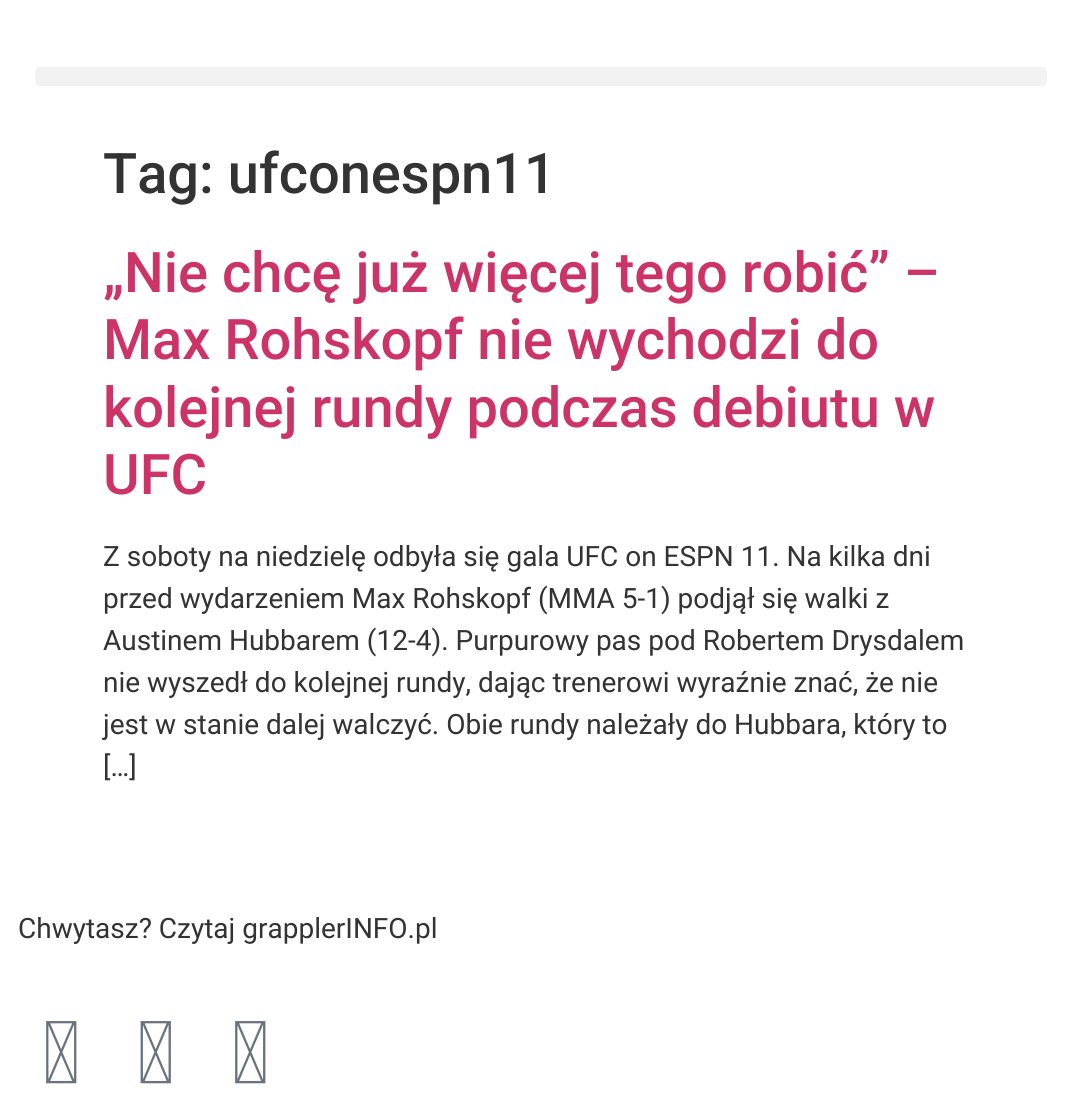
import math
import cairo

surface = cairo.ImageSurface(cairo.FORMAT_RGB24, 1081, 1111)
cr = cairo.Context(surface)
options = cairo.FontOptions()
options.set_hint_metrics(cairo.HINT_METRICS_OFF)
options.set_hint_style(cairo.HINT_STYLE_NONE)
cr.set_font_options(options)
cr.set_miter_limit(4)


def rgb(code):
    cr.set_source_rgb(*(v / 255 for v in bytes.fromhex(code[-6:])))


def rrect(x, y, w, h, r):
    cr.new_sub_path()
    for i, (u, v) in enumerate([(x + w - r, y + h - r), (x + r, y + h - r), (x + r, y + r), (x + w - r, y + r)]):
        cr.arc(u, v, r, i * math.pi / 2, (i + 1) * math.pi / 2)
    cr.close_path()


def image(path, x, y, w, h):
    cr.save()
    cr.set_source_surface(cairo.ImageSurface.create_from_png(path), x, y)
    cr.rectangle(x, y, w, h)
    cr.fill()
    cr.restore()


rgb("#ffffff")
cr.paint()
rgb("#f2f2f2")
rrect(35, 67, 1012, 19, 5)
cr.fill()
image("img/1.png", 46, 1021, 31, 63)
image("img/2.png", 140, 1021, 31, 63)
image("img/1.png", 235, 1021, 31, 63)
cr.select_font_face("Roboto Medium")
cr.set_font_size(56)
rgb("#333333")
cr.move_to(103, 193)
cr.show_text("Tag: ufconespn11")
rgb("#cc3366")
for x, y, s in [
    (103, 292, "„Nie chcę już więcej tego robić” –"),
    (103, 359, "Max Rohskopf nie wychodzi do"),
    (103, 427, "kolejnej rundy podczas debiutu w"),
    (103, 494, "UFC"),
]:
    cr.move_to(x, y)
    cr.show_text(s)
cr.select_font_face("Roboto")
cr.set_font_size(28)
rgb("#333333")
for x, y, s in [
    (103, 566, "Z soboty na niedzielę odbyła się gala UFC on ESPN 11. Na kilka dni"),
    (103, 608, "przed wydarzeniem Max Rohskopf (MMA 5-1) podjął się walki z"),
    (103, 650, "Austinem Hubbarem (12-4). Purpurowy pas pod Robertem Drysdalem"),
    (103, 692, "nie wyszedł do kolejnej rundy, dając trenerowi wyraźnie znać, że nie"),
    (103, 734, "jest w stanie dalej walczyć. Obie rundy należały do Hubbara, który to"),
    (103, 776, "[…]"),
    (18, 938, "Chwytasz? Czytaj grapplerINFO.pl"),
]:
    cr.move_to(x, y)
    cr.show_text(s)
surface.write_to_png("page.png")
